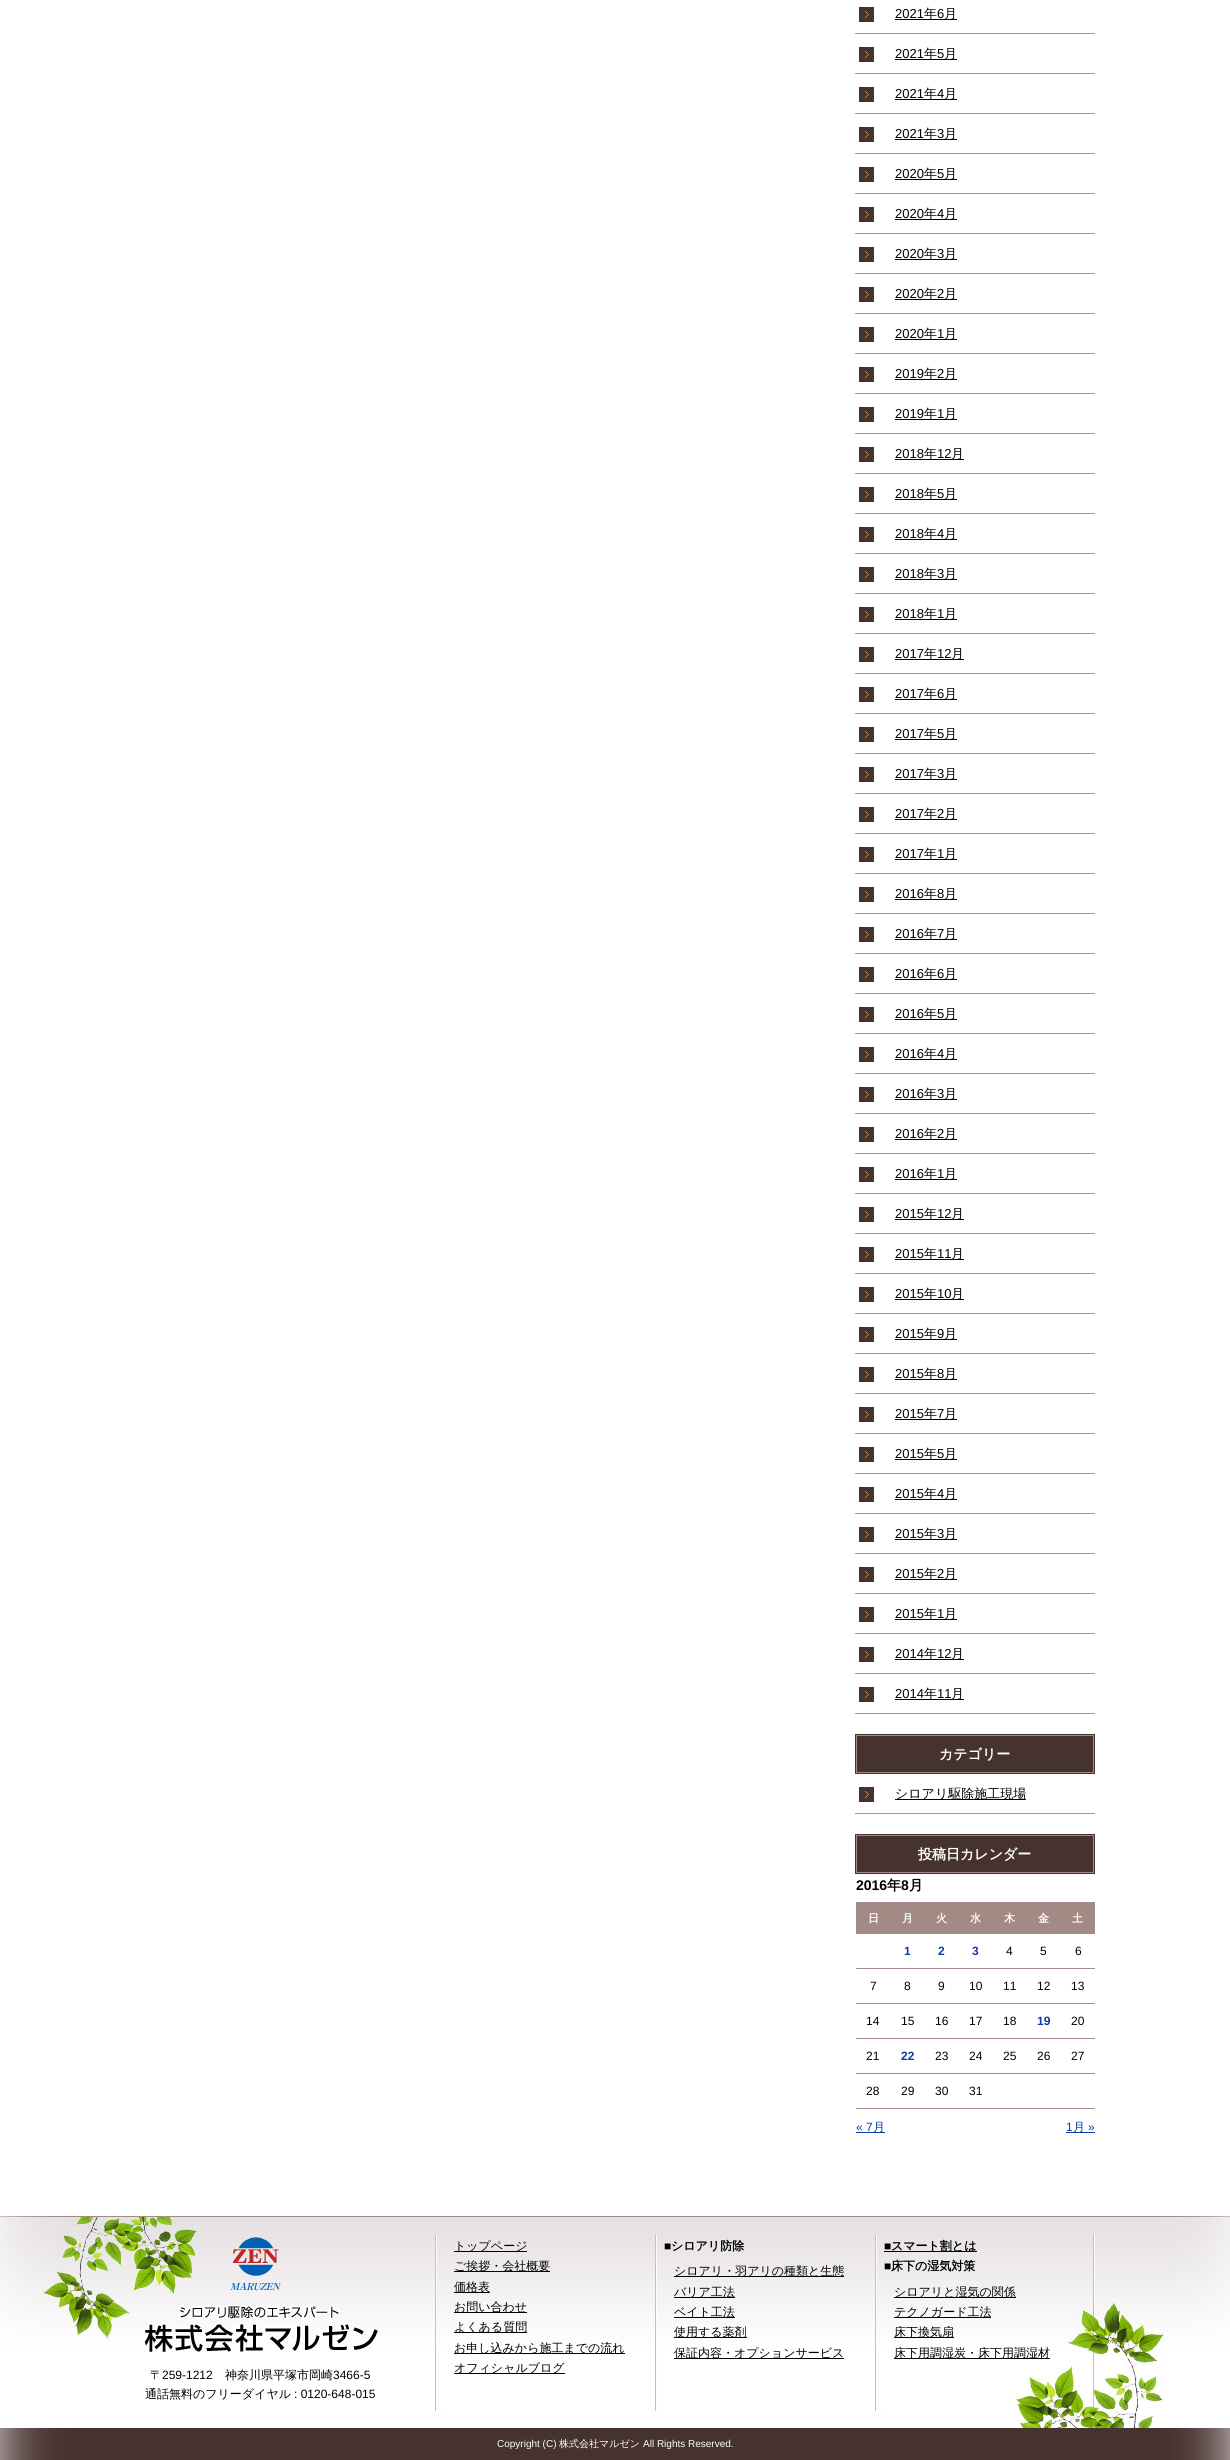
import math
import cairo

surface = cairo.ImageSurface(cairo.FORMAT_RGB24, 1230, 2460)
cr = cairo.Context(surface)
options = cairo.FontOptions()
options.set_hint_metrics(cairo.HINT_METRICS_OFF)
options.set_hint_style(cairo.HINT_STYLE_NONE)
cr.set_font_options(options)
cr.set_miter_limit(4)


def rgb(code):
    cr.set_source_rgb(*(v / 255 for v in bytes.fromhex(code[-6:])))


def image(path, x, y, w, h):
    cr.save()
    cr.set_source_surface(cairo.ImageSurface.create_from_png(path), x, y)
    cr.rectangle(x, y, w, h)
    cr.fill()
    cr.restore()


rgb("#ffffff")
cr.paint()
image("img/1.png", 855, 7, 240, 27)
rgb("#000000")
cr.rectangle(895, 19, 62, 1)
cr.fill()
image("img/1.png", 855, 47, 240, 27)
cr.rectangle(895, 59, 62, 1)
cr.fill()
image("img/1.png", 855, 87, 240, 27)
cr.rectangle(895, 99, 62, 1)
cr.fill()
image("img/1.png", 855, 127, 240, 27)
cr.rectangle(895, 139, 62, 1)
cr.fill()
image("img/1.png", 855, 167, 240, 27)
cr.rectangle(895, 179, 62, 1)
cr.fill()
image("img/1.png", 855, 207, 240, 27)
cr.rectangle(895, 219, 62, 1)
cr.fill()
image("img/1.png", 855, 247, 240, 27)
cr.rectangle(895, 259, 62, 1)
cr.fill()
image("img/1.png", 855, 287, 240, 27)
cr.rectangle(895, 299, 62, 1)
cr.fill()
image("img/1.png", 855, 327, 240, 27)
cr.rectangle(895, 339, 62, 1)
cr.fill()
image("img/1.png", 855, 367, 240, 27)
cr.rectangle(895, 379, 62, 1)
cr.fill()
image("img/1.png", 855, 407, 240, 27)
cr.rectangle(895, 419, 62, 1)
cr.fill()
image("img/1.png", 855, 447, 240, 27)
cr.rectangle(895, 459, 69, 1)
cr.fill()
image("img/1.png", 855, 487, 240, 27)
cr.rectangle(895, 499, 62, 1)
cr.fill()
image("img/1.png", 855, 527, 240, 27)
cr.rectangle(895, 539, 62, 1)
cr.fill()
image("img/1.png", 855, 567, 240, 27)
cr.rectangle(895, 579, 62, 1)
cr.fill()
image("img/1.png", 855, 607, 240, 27)
cr.rectangle(895, 619, 62, 1)
cr.fill()
image("img/1.png", 855, 647, 240, 27)
cr.rectangle(895, 659, 69, 1)
cr.fill()
image("img/1.png", 855, 687, 240, 27)
cr.rectangle(895, 699, 62, 1)
cr.fill()
image("img/1.png", 855, 727, 240, 27)
cr.rectangle(895, 739, 62, 1)
cr.fill()
image("img/1.png", 855, 767, 240, 27)
cr.rectangle(895, 779, 62, 1)
cr.fill()
image("img/1.png", 855, 807, 240, 27)
cr.rectangle(895, 819, 62, 1)
cr.fill()
image("img/1.png", 855, 847, 240, 27)
cr.rectangle(895, 859, 62, 1)
cr.fill()
image("img/1.png", 855, 887, 240, 27)
cr.rectangle(895, 899, 62, 1)
cr.fill()
image("img/1.png", 855, 927, 240, 27)
cr.rectangle(895, 939, 62, 1)
cr.fill()
image("img/1.png", 855, 967, 240, 27)
cr.rectangle(895, 979, 62, 1)
cr.fill()
image("img/1.png", 855, 1007, 240, 27)
cr.rectangle(895, 1019, 62, 1)
cr.fill()
image("img/1.png", 855, 1047, 240, 27)
cr.rectangle(895, 1059, 62, 1)
cr.fill()
image("img/1.png", 855, 1087, 240, 27)
cr.rectangle(895, 1099, 62, 1)
cr.fill()
image("img/1.png", 855, 1127, 240, 27)
cr.rectangle(895, 1139, 62, 1)
cr.fill()
image("img/1.png", 855, 1167, 240, 27)
cr.rectangle(895, 1179, 62, 1)
cr.fill()
image("img/1.png", 855, 1207, 240, 27)
cr.rectangle(895, 1219, 69, 1)
cr.fill()
image("img/1.png", 855, 1247, 240, 27)
cr.rectangle(895, 1259, 69, 1)
cr.fill()
image("img/1.png", 855, 1287, 240, 27)
cr.rectangle(895, 1299, 69, 1)
cr.fill()
image("img/1.png", 855, 1327, 240, 27)
cr.rectangle(895, 1339, 62, 1)
cr.fill()
image("img/1.png", 855, 1367, 240, 27)
cr.rectangle(895, 1379, 62, 1)
cr.fill()
image("img/1.png", 855, 1407, 240, 27)
cr.rectangle(895, 1419, 62, 1)
cr.fill()
image("img/1.png", 855, 1447, 240, 27)
cr.rectangle(895, 1459, 62, 1)
cr.fill()
image("img/1.png", 855, 1487, 240, 27)
cr.rectangle(895, 1499, 62, 1)
cr.fill()
image("img/1.png", 855, 1527, 240, 27)
cr.rectangle(895, 1539, 62, 1)
cr.fill()
image("img/1.png", 855, 1567, 240, 27)
cr.rectangle(895, 1579, 62, 1)
cr.fill()
image("img/1.png", 855, 1607, 240, 27)
cr.rectangle(895, 1619, 62, 1)
cr.fill()
image("img/1.png", 855, 1647, 240, 27)
cr.rectangle(895, 1659, 69, 1)
cr.fill()
image("img/1.png", 855, 1687, 240, 27)
cr.rectangle(895, 1699, 69, 1)
cr.fill()
image("img/2.png", 855, 1734, 240, 40)
image("img/1.png", 855, 1787, 240, 27)
cr.rectangle(895, 1799, 131, 1)
cr.fill()
image("img/2.png", 855, 1834, 240, 40)
for x, y, w, h, color in [
    (856, 1902, 239, 32, "#a48a85"),
    (856, 1968, 239, 1, "#a48a85"),
    (856, 2003, 239, 1, "#a48a85"),
    (856, 2038, 239, 1, "#a48a85"),
    (856, 2073, 239, 1, "#a48a85"),
    (856, 2108, 239, 1, "#a48a85"),
    (856, 2132, 29, 1, "#0e3ba2"),
    (1066, 2132, 29, 1, "#0e3ba2"),
]:
    rgb(color)
    cr.rectangle(x, y, w, h)
    cr.fill()
image("img/3.png", 0, 2216, 1230, 244)
for x, y, w, h, color in [
    (454, 2251, 73, 1, "#000000"),
    (454, 2271, 96, 1, "#000000"),
    (454, 2292, 36, 1, "#000000"),
    (454, 2312, 73, 1, "#000000"),
    (454, 2332, 73, 1, "#000000"),
    (454, 2353, 171, 1, "#000000"),
    (454, 2373, 111, 1, "#000000"),
    (674, 2276, 170, 1, "#000000"),
    (674, 2297, 61, 1, "#000000"),
    (674, 2317, 61, 1, "#000000"),
    (674, 2337, 73, 1, "#000000"),
    (674, 2358, 170, 1, "#000000"),
    (884, 2251, 93, 1, "#000000"),
    (894, 2297, 122, 1, "#000000"),
    (894, 2317, 97, 1, "#000000"),
    (894, 2337, 60, 1, "#000000"),
    (894, 2358, 156, 1, "#000000"),
]:
    rgb(color)
    cr.rectangle(x, y, w, h)
    cr.fill()
cr.select_font_face("Liberation Sans")
cr.set_font_size(13)
cr.move_to(895, 18)
cr.show_text("2021")
cr.select_font_face("WenQuanYi Zen Hei Medium")
cr.move_to(924, 18)
cr.show_text("年")
cr.select_font_face("Liberation Sans")
cr.move_to(937, 18)
cr.show_text("6")
cr.select_font_face("WenQuanYi Zen Hei Medium")
cr.move_to(944, 18)
cr.show_text("月")
cr.select_font_face("Liberation Sans")
cr.move_to(895, 58)
cr.show_text("2021")
cr.select_font_face("WenQuanYi Zen Hei Medium")
cr.move_to(924, 58)
cr.show_text("年")
cr.select_font_face("Liberation Sans")
cr.move_to(937, 58)
cr.show_text("5")
cr.select_font_face("WenQuanYi Zen Hei Medium")
cr.move_to(944, 58)
cr.show_text("月")
cr.select_font_face("Liberation Sans")
cr.move_to(895, 98)
cr.show_text("2021")
cr.select_font_face("WenQuanYi Zen Hei Medium")
cr.move_to(924, 98)
cr.show_text("年")
cr.select_font_face("Liberation Sans")
cr.move_to(937, 98)
cr.show_text("4")
cr.select_font_face("WenQuanYi Zen Hei Medium")
cr.move_to(944, 98)
cr.show_text("月")
cr.select_font_face("Liberation Sans")
cr.move_to(895, 138)
cr.show_text("2021")
cr.select_font_face("WenQuanYi Zen Hei Medium")
cr.move_to(924, 138)
cr.show_text("年")
cr.select_font_face("Liberation Sans")
cr.move_to(937, 138)
cr.show_text("3")
cr.select_font_face("WenQuanYi Zen Hei Medium")
cr.move_to(944, 138)
cr.show_text("月")
cr.select_font_face("Liberation Sans")
cr.move_to(895, 178)
cr.show_text("2020")
cr.select_font_face("WenQuanYi Zen Hei Medium")
cr.move_to(924, 178)
cr.show_text("年")
cr.select_font_face("Liberation Sans")
cr.move_to(937, 178)
cr.show_text("5")
cr.select_font_face("WenQuanYi Zen Hei Medium")
cr.move_to(944, 178)
cr.show_text("月")
cr.select_font_face("Liberation Sans")
cr.move_to(895, 218)
cr.show_text("2020")
cr.select_font_face("WenQuanYi Zen Hei Medium")
cr.move_to(924, 218)
cr.show_text("年")
cr.select_font_face("Liberation Sans")
cr.move_to(937, 218)
cr.show_text("4")
cr.select_font_face("WenQuanYi Zen Hei Medium")
cr.move_to(944, 218)
cr.show_text("月")
cr.select_font_face("Liberation Sans")
cr.move_to(895, 258)
cr.show_text("2020")
cr.select_font_face("WenQuanYi Zen Hei Medium")
cr.move_to(924, 258)
cr.show_text("年")
cr.select_font_face("Liberation Sans")
cr.move_to(937, 258)
cr.show_text("3")
cr.select_font_face("WenQuanYi Zen Hei Medium")
cr.move_to(944, 258)
cr.show_text("月")
cr.select_font_face("Liberation Sans")
cr.move_to(895, 298)
cr.show_text("2020")
cr.select_font_face("WenQuanYi Zen Hei Medium")
cr.move_to(924, 298)
cr.show_text("年")
cr.select_font_face("Liberation Sans")
cr.move_to(937, 298)
cr.show_text("2")
cr.select_font_face("WenQuanYi Zen Hei Medium")
cr.move_to(944, 298)
cr.show_text("月")
cr.select_font_face("Liberation Sans")
cr.move_to(895, 338)
cr.show_text("2020")
cr.select_font_face("WenQuanYi Zen Hei Medium")
cr.move_to(924, 338)
cr.show_text("年")
cr.select_font_face("Liberation Sans")
cr.move_to(937, 338)
cr.show_text("1")
cr.select_font_face("WenQuanYi Zen Hei Medium")
cr.move_to(944, 338)
cr.show_text("月")
cr.select_font_face("Liberation Sans")
cr.move_to(895, 378)
cr.show_text("2019")
cr.select_font_face("WenQuanYi Zen Hei Medium")
cr.move_to(924, 378)
cr.show_text("年")
cr.select_font_face("Liberation Sans")
cr.move_to(937, 378)
cr.show_text("2")
cr.select_font_face("WenQuanYi Zen Hei Medium")
cr.move_to(944, 378)
cr.show_text("月")
cr.select_font_face("Liberation Sans")
cr.move_to(895, 418)
cr.show_text("2019")
cr.select_font_face("WenQuanYi Zen Hei Medium")
cr.move_to(924, 418)
cr.show_text("年")
cr.select_font_face("Liberation Sans")
cr.move_to(937, 418)
cr.show_text("1")
cr.select_font_face("WenQuanYi Zen Hei Medium")
cr.move_to(944, 418)
cr.show_text("月")
cr.select_font_face("Liberation Sans")
cr.move_to(895, 458)
cr.show_text("2018")
cr.select_font_face("WenQuanYi Zen Hei Medium")
cr.move_to(924, 458)
cr.show_text("年")
cr.select_font_face("Liberation Sans")
cr.move_to(937, 458)
cr.show_text("12")
cr.select_font_face("WenQuanYi Zen Hei Medium")
cr.move_to(951, 458)
cr.show_text("月")
cr.select_font_face("Liberation Sans")
cr.move_to(895, 498)
cr.show_text("2018")
cr.select_font_face("WenQuanYi Zen Hei Medium")
cr.move_to(924, 498)
cr.show_text("年")
cr.select_font_face("Liberation Sans")
cr.move_to(937, 498)
cr.show_text("5")
cr.select_font_face("WenQuanYi Zen Hei Medium")
cr.move_to(944, 498)
cr.show_text("月")
cr.select_font_face("Liberation Sans")
cr.move_to(895, 538)
cr.show_text("2018")
cr.select_font_face("WenQuanYi Zen Hei Medium")
cr.move_to(924, 538)
cr.show_text("年")
cr.select_font_face("Liberation Sans")
cr.move_to(937, 538)
cr.show_text("4")
cr.select_font_face("WenQuanYi Zen Hei Medium")
cr.move_to(944, 538)
cr.show_text("月")
cr.select_font_face("Liberation Sans")
cr.move_to(895, 578)
cr.show_text("2018")
cr.select_font_face("WenQuanYi Zen Hei Medium")
cr.move_to(924, 578)
cr.show_text("年")
cr.select_font_face("Liberation Sans")
cr.move_to(937, 578)
cr.show_text("3")
cr.select_font_face("WenQuanYi Zen Hei Medium")
cr.move_to(944, 578)
cr.show_text("月")
cr.select_font_face("Liberation Sans")
cr.move_to(895, 618)
cr.show_text("2018")
cr.select_font_face("WenQuanYi Zen Hei Medium")
cr.move_to(924, 618)
cr.show_text("年")
cr.select_font_face("Liberation Sans")
cr.move_to(937, 618)
cr.show_text("1")
cr.select_font_face("WenQuanYi Zen Hei Medium")
cr.move_to(944, 618)
cr.show_text("月")
cr.select_font_face("Liberation Sans")
cr.move_to(895, 658)
cr.show_text("2017")
cr.select_font_face("WenQuanYi Zen Hei Medium")
cr.move_to(924, 658)
cr.show_text("年")
cr.select_font_face("Liberation Sans")
cr.move_to(937, 658)
cr.show_text("12")
cr.select_font_face("WenQuanYi Zen Hei Medium")
cr.move_to(951, 658)
cr.show_text("月")
cr.select_font_face("Liberation Sans")
cr.move_to(895, 698)
cr.show_text("2017")
cr.select_font_face("WenQuanYi Zen Hei Medium")
cr.move_to(924, 698)
cr.show_text("年")
cr.select_font_face("Liberation Sans")
cr.move_to(937, 698)
cr.show_text("6")
cr.select_font_face("WenQuanYi Zen Hei Medium")
cr.move_to(944, 698)
cr.show_text("月")
cr.select_font_face("Liberation Sans")
cr.move_to(895, 738)
cr.show_text("2017")
cr.select_font_face("WenQuanYi Zen Hei Medium")
cr.move_to(924, 738)
cr.show_text("年")
cr.select_font_face("Liberation Sans")
cr.move_to(937, 738)
cr.show_text("5")
cr.select_font_face("WenQuanYi Zen Hei Medium")
cr.move_to(944, 738)
cr.show_text("月")
cr.select_font_face("Liberation Sans")
cr.move_to(895, 778)
cr.show_text("2017")
cr.select_font_face("WenQuanYi Zen Hei Medium")
cr.move_to(924, 778)
cr.show_text("年")
cr.select_font_face("Liberation Sans")
cr.move_to(937, 778)
cr.show_text("3")
cr.select_font_face("WenQuanYi Zen Hei Medium")
cr.move_to(944, 778)
cr.show_text("月")
cr.select_font_face("Liberation Sans")
cr.move_to(895, 818)
cr.show_text("2017")
cr.select_font_face("WenQuanYi Zen Hei Medium")
cr.move_to(924, 818)
cr.show_text("年")
cr.select_font_face("Liberation Sans")
cr.move_to(937, 818)
cr.show_text("2")
cr.select_font_face("WenQuanYi Zen Hei Medium")
cr.move_to(944, 818)
cr.show_text("月")
cr.select_font_face("Liberation Sans")
cr.move_to(895, 858)
cr.show_text("2017")
cr.select_font_face("WenQuanYi Zen Hei Medium")
cr.move_to(924, 858)
cr.show_text("年")
cr.select_font_face("Liberation Sans")
cr.move_to(937, 858)
cr.show_text("1")
cr.select_font_face("WenQuanYi Zen Hei Medium")
cr.move_to(944, 858)
cr.show_text("月")
cr.select_font_face("Liberation Sans")
cr.move_to(895, 898)
cr.show_text("2016")
cr.select_font_face("WenQuanYi Zen Hei Medium")
cr.move_to(924, 898)
cr.show_text("年")
cr.select_font_face("Liberation Sans")
cr.move_to(937, 898)
cr.show_text("8")
cr.select_font_face("WenQuanYi Zen Hei Medium")
cr.move_to(944, 898)
cr.show_text("月")
cr.select_font_face("Liberation Sans")
cr.move_to(895, 938)
cr.show_text("2016")
cr.select_font_face("WenQuanYi Zen Hei Medium")
cr.move_to(924, 938)
cr.show_text("年")
cr.select_font_face("Liberation Sans")
cr.move_to(937, 938)
cr.show_text("7")
cr.select_font_face("WenQuanYi Zen Hei Medium")
cr.move_to(944, 938)
cr.show_text("月")
cr.select_font_face("Liberation Sans")
cr.move_to(895, 978)
cr.show_text("2016")
cr.select_font_face("WenQuanYi Zen Hei Medium")
cr.move_to(924, 978)
cr.show_text("年")
cr.select_font_face("Liberation Sans")
cr.move_to(937, 978)
cr.show_text("6")
cr.select_font_face("WenQuanYi Zen Hei Medium")
cr.move_to(944, 978)
cr.show_text("月")
cr.select_font_face("Liberation Sans")
cr.move_to(895, 1018)
cr.show_text("2016")
cr.select_font_face("WenQuanYi Zen Hei Medium")
cr.move_to(924, 1018)
cr.show_text("年")
cr.select_font_face("Liberation Sans")
cr.move_to(937, 1018)
cr.show_text("5")
cr.select_font_face("WenQuanYi Zen Hei Medium")
cr.move_to(944, 1018)
cr.show_text("月")
cr.select_font_face("Liberation Sans")
cr.move_to(895, 1058)
cr.show_text("2016")
cr.select_font_face("WenQuanYi Zen Hei Medium")
cr.move_to(924, 1058)
cr.show_text("年")
cr.select_font_face("Liberation Sans")
cr.move_to(937, 1058)
cr.show_text("4")
cr.select_font_face("WenQuanYi Zen Hei Medium")
cr.move_to(944, 1058)
cr.show_text("月")
cr.select_font_face("Liberation Sans")
cr.move_to(895, 1098)
cr.show_text("2016")
cr.select_font_face("WenQuanYi Zen Hei Medium")
cr.move_to(924, 1098)
cr.show_text("年")
cr.select_font_face("Liberation Sans")
cr.move_to(937, 1098)
cr.show_text("3")
cr.select_font_face("WenQuanYi Zen Hei Medium")
cr.move_to(944, 1098)
cr.show_text("月")
cr.select_font_face("Liberation Sans")
cr.move_to(895, 1138)
cr.show_text("2016")
cr.select_font_face("WenQuanYi Zen Hei Medium")
cr.move_to(924, 1138)
cr.show_text("年")
cr.select_font_face("Liberation Sans")
cr.move_to(937, 1138)
cr.show_text("2")
cr.select_font_face("WenQuanYi Zen Hei Medium")
cr.move_to(944, 1138)
cr.show_text("月")
cr.select_font_face("Liberation Sans")
cr.move_to(895, 1178)
cr.show_text("2016")
cr.select_font_face("WenQuanYi Zen Hei Medium")
cr.move_to(924, 1178)
cr.show_text("年")
cr.select_font_face("Liberation Sans")
cr.move_to(937, 1178)
cr.show_text("1")
cr.select_font_face("WenQuanYi Zen Hei Medium")
cr.move_to(944, 1178)
cr.show_text("月")
cr.select_font_face("Liberation Sans")
cr.move_to(895, 1218)
cr.show_text("2015")
cr.select_font_face("WenQuanYi Zen Hei Medium")
cr.move_to(924, 1218)
cr.show_text("年")
cr.select_font_face("Liberation Sans")
cr.move_to(937, 1218)
cr.show_text("12")
cr.select_font_face("WenQuanYi Zen Hei Medium")
cr.move_to(951, 1218)
cr.show_text("月")
cr.select_font_face("Liberation Sans")
cr.move_to(895, 1258)
cr.show_text("2015")
cr.select_font_face("WenQuanYi Zen Hei Medium")
cr.move_to(924, 1258)
cr.show_text("年")
cr.select_font_face("Liberation Sans")
cr.move_to(937, 1258)
cr.show_text("11")
cr.select_font_face("WenQuanYi Zen Hei Medium")
cr.move_to(951, 1258)
cr.show_text("月")
cr.select_font_face("Liberation Sans")
cr.move_to(895, 1298)
cr.show_text("2015")
cr.select_font_face("WenQuanYi Zen Hei Medium")
cr.move_to(924, 1298)
cr.show_text("年")
cr.select_font_face("Liberation Sans")
cr.move_to(937, 1298)
cr.show_text("10")
cr.select_font_face("WenQuanYi Zen Hei Medium")
cr.move_to(951, 1298)
cr.show_text("月")
cr.select_font_face("Liberation Sans")
cr.move_to(895, 1338)
cr.show_text("2015")
cr.select_font_face("WenQuanYi Zen Hei Medium")
cr.move_to(924, 1338)
cr.show_text("年")
cr.select_font_face("Liberation Sans")
cr.move_to(937, 1338)
cr.show_text("9")
cr.select_font_face("WenQuanYi Zen Hei Medium")
cr.move_to(944, 1338)
cr.show_text("月")
cr.select_font_face("Liberation Sans")
cr.move_to(895, 1378)
cr.show_text("2015")
cr.select_font_face("WenQuanYi Zen Hei Medium")
cr.move_to(924, 1378)
cr.show_text("年")
cr.select_font_face("Liberation Sans")
cr.move_to(937, 1378)
cr.show_text("8")
cr.select_font_face("WenQuanYi Zen Hei Medium")
cr.move_to(944, 1378)
cr.show_text("月")
cr.select_font_face("Liberation Sans")
cr.move_to(895, 1418)
cr.show_text("2015")
cr.select_font_face("WenQuanYi Zen Hei Medium")
cr.move_to(924, 1418)
cr.show_text("年")
cr.select_font_face("Liberation Sans")
cr.move_to(937, 1418)
cr.show_text("7")
cr.select_font_face("WenQuanYi Zen Hei Medium")
cr.move_to(944, 1418)
cr.show_text("月")
cr.select_font_face("Liberation Sans")
cr.move_to(895, 1458)
cr.show_text("2015")
cr.select_font_face("WenQuanYi Zen Hei Medium")
cr.move_to(924, 1458)
cr.show_text("年")
cr.select_font_face("Liberation Sans")
cr.move_to(937, 1458)
cr.show_text("5")
cr.select_font_face("WenQuanYi Zen Hei Medium")
cr.move_to(944, 1458)
cr.show_text("月")
cr.select_font_face("Liberation Sans")
cr.move_to(895, 1498)
cr.show_text("2015")
cr.select_font_face("WenQuanYi Zen Hei Medium")
cr.move_to(924, 1498)
cr.show_text("年")
cr.select_font_face("Liberation Sans")
cr.move_to(937, 1498)
cr.show_text("4")
cr.select_font_face("WenQuanYi Zen Hei Medium")
cr.move_to(944, 1498)
cr.show_text("月")
cr.select_font_face("Liberation Sans")
cr.move_to(895, 1538)
cr.show_text("2015")
cr.select_font_face("WenQuanYi Zen Hei Medium")
cr.move_to(924, 1538)
cr.show_text("年")
cr.select_font_face("Liberation Sans")
cr.move_to(937, 1538)
cr.show_text("3")
cr.select_font_face("WenQuanYi Zen Hei Medium")
cr.move_to(944, 1538)
cr.show_text("月")
cr.select_font_face("Liberation Sans")
cr.move_to(895, 1578)
cr.show_text("2015")
cr.select_font_face("WenQuanYi Zen Hei Medium")
cr.move_to(924, 1578)
cr.show_text("年")
cr.select_font_face("Liberation Sans")
cr.move_to(937, 1578)
cr.show_text("2")
cr.select_font_face("WenQuanYi Zen Hei Medium")
cr.move_to(944, 1578)
cr.show_text("月")
cr.select_font_face("Liberation Sans")
cr.move_to(895, 1618)
cr.show_text("2015")
cr.select_font_face("WenQuanYi Zen Hei Medium")
cr.move_to(924, 1618)
cr.show_text("年")
cr.select_font_face("Liberation Sans")
cr.move_to(937, 1618)
cr.show_text("1")
cr.select_font_face("WenQuanYi Zen Hei Medium")
cr.move_to(944, 1618)
cr.show_text("月")
cr.select_font_face("Liberation Sans")
cr.move_to(895, 1658)
cr.show_text("2014")
cr.select_font_face("WenQuanYi Zen Hei Medium")
cr.move_to(924, 1658)
cr.show_text("年")
cr.select_font_face("Liberation Sans")
cr.move_to(937, 1658)
cr.show_text("12")
cr.select_font_face("WenQuanYi Zen Hei Medium")
cr.move_to(951, 1658)
cr.show_text("月")
cr.select_font_face("Liberation Sans")
cr.move_to(895, 1698)
cr.show_text("2014")
cr.select_font_face("WenQuanYi Zen Hei Medium")
cr.move_to(924, 1698)
cr.show_text("年")
cr.select_font_face("Liberation Sans")
cr.move_to(937, 1698)
cr.show_text("11")
cr.select_font_face("WenQuanYi Zen Hei Medium")
cr.move_to(951, 1698)
cr.show_text("月")
cr.select_font_face("WenQuanYi Zen Hei", cairo.FONT_SLANT_NORMAL, cairo.FONT_WEIGHT_BOLD)
cr.set_font_size(14)
rgb("#ffffff")
cr.move_to(939, 1759)
cr.show_text("カテゴリー")
cr.select_font_face("WenQuanYi Zen Hei Medium")
cr.set_font_size(13)
rgb("#000000")
cr.move_to(895, 1798)
cr.show_text("シロアリ駆除施工現場")
cr.select_font_face("WenQuanYi Zen Hei", cairo.FONT_SLANT_NORMAL, cairo.FONT_WEIGHT_BOLD)
cr.set_font_size(14)
rgb("#ffffff")
cr.move_to(918, 1859)
cr.show_text("投稿日カレンダー")
cr.select_font_face("Liberation Sans", cairo.FONT_SLANT_NORMAL, cairo.FONT_WEIGHT_BOLD)
rgb("#000000")
cr.move_to(856, 1890)
cr.show_text("2016")
cr.select_font_face("WenQuanYi Zen Hei", cairo.FONT_SLANT_NORMAL, cairo.FONT_WEIGHT_BOLD)
cr.move_to(887, 1890)
cr.show_text("年")
cr.select_font_face("Liberation Sans", cairo.FONT_SLANT_NORMAL, cairo.FONT_WEIGHT_BOLD)
cr.move_to(901, 1890)
cr.show_text("8")
cr.select_font_face("WenQuanYi Zen Hei", cairo.FONT_SLANT_NORMAL, cairo.FONT_WEIGHT_BOLD)
cr.move_to(909, 1890)
cr.show_text("月")
cr.set_font_size(11)
rgb("#ffffff")
for x, y, s in [
    (868, 1922, "日"),
    (902, 1922, "月"),
    (936, 1922, "火"),
    (970, 1922, "水"),
    (1004, 1922, "木"),
    (1038, 1922, "金"),
    (1072, 1922, "土"),
]:
    cr.move_to(x, y)
    cr.show_text(s)
cr.select_font_face("Liberation Sans", cairo.FONT_SLANT_NORMAL, cairo.FONT_WEIGHT_BOLD)
cr.set_font_size(12)
rgb("#0e3ba2")
for x, y, s in [
    (904, 1955, "1"),
    (938, 1955, "2"),
    (972, 1955, "3"),
]:
    cr.move_to(x, y)
    cr.show_text(s)
cr.select_font_face("Liberation Sans")
rgb("#000000")
for x, y, s in [
    (1006, 1955, "4"),
    (1040, 1955, "5"),
    (1075, 1955, "6"),
    (870, 1990, "7"),
    (904, 1990, "8"),
    (938, 1990, "9"),
    (969, 1990, "10"),
    (1003, 1990, "11"),
    (1037, 1990, "12"),
    (1071, 1990, "13"),
    (866, 2025, "14"),
    (901, 2025, "15"),
    (935, 2025, "16"),
    (969, 2025, "17"),
    (1003, 2025, "18"),
]:
    cr.move_to(x, y)
    cr.show_text(s)
cr.select_font_face("Liberation Sans", cairo.FONT_SLANT_NORMAL, cairo.FONT_WEIGHT_BOLD)
rgb("#0e3ba2")
cr.move_to(1037, 2025)
cr.show_text("19")
cr.select_font_face("Liberation Sans")
rgb("#000000")
cr.move_to(1071, 2025)
cr.show_text("20")
cr.move_to(866, 2060)
cr.show_text("21")
cr.select_font_face("Liberation Sans", cairo.FONT_SLANT_NORMAL, cairo.FONT_WEIGHT_BOLD)
rgb("#0e3ba2")
cr.move_to(901, 2060)
cr.show_text("22")
cr.select_font_face("Liberation Sans")
rgb("#000000")
for x, y, s in [
    (935, 2060, "23"),
    (969, 2060, "24"),
    (1003, 2060, "25"),
    (1037, 2060, "26"),
    (1071, 2060, "27"),
    (866, 2095, "28"),
    (901, 2095, "29"),
    (935, 2095, "30"),
    (969, 2095, "31"),
]:
    cr.move_to(x, y)
    cr.show_text(s)
rgb("#0e3ba2")
cr.move_to(856, 2131)
cr.show_text("« 7")
cr.select_font_face("WenQuanYi Zen Hei Medium")
cr.move_to(873, 2131)
cr.show_text("月")
cr.select_font_face("Liberation Sans")
cr.move_to(1066, 2131)
cr.show_text("1")
cr.select_font_face("WenQuanYi Zen Hei Medium")
cr.move_to(1073, 2131)
cr.show_text("月")
cr.select_font_face("Liberation Sans")
cr.move_to(1088, 2131)
cr.show_text("»")
cr.select_font_face("WenQuanYi Zen Hei Medium")
rgb("#000000")
for x, y, s in [
    (454, 2250, "トップページ"),
    (454, 2270, "ご挨拶・会社概要"),
    (454, 2291, "価格表"),
    (454, 2311, "お問い合わせ"),
    (454, 2331, "よくある質問"),
    (454, 2352, "お申し込みから施工までの流れ"),
    (454, 2372, "オフィシャルブログ"),
]:
    cr.move_to(x, y)
    cr.show_text(s)
cr.select_font_face("Liberation Sans", cairo.FONT_SLANT_NORMAL, cairo.FONT_WEIGHT_BOLD)
cr.move_to(664, 2250)
cr.show_text("■")
cr.select_font_face("WenQuanYi Zen Hei", cairo.FONT_SLANT_NORMAL, cairo.FONT_WEIGHT_BOLD)
cr.move_to(671, 2250)
cr.show_text("シロアリ防除")
cr.select_font_face("WenQuanYi Zen Hei Medium")
for x, y, s in [
    (674, 2275, "シロアリ・羽アリの種類と生態"),
    (674, 2296, "バリア工法"),
    (674, 2316, "ベイト工法"),
    (674, 2336, "使用する薬剤"),
    (674, 2357, "保証内容・オプションサービス"),
]:
    cr.move_to(x, y)
    cr.show_text(s)
cr.select_font_face("Liberation Sans", cairo.FONT_SLANT_NORMAL, cairo.FONT_WEIGHT_BOLD)
cr.move_to(884, 2250)
cr.show_text("■")
cr.select_font_face("WenQuanYi Zen Hei", cairo.FONT_SLANT_NORMAL, cairo.FONT_WEIGHT_BOLD)
cr.move_to(891, 2250)
cr.show_text("スマート割とは")
cr.select_font_face("Liberation Sans", cairo.FONT_SLANT_NORMAL, cairo.FONT_WEIGHT_BOLD)
cr.move_to(884, 2270)
cr.show_text("■")
cr.select_font_face("WenQuanYi Zen Hei", cairo.FONT_SLANT_NORMAL, cairo.FONT_WEIGHT_BOLD)
cr.move_to(891, 2270)
cr.show_text("床下の湿気対策")
cr.select_font_face("WenQuanYi Zen Hei Medium")
for x, y, s in [
    (894, 2296, "シロアリと湿気の関係"),
    (894, 2316, "テクノガード工法"),
    (894, 2336, "床下換気扇"),
    (894, 2357, "床下用調湿炭・床下用調湿材"),
    (150, 2379, "〒"),
]:
    cr.move_to(x, y)
    cr.show_text(s)
cr.select_font_face("Liberation Sans")
cr.move_to(162, 2379)
cr.show_text("259-1212")
cr.select_font_face("WenQuanYi Zen Hei Medium")
cr.move_to(225, 2379)
cr.show_text("神奈川県平塚市岡崎")
cr.select_font_face("Liberation Sans")
cr.move_to(333, 2379)
cr.show_text("3466-5")
cr.select_font_face("WenQuanYi Zen Hei Medium")
cr.move_to(145, 2398)
cr.show_text("通話無料のフリーダイヤル")
cr.select_font_face("Liberation Sans")
cr.move_to(294, 2398)
cr.show_text(": 0120-648-015")
cr.set_font_size(10)
rgb("#ffffff")
cr.move_to(497, 2447)
cr.show_text("Copyright (C)")
cr.select_font_face("WenQuanYi Zen Hei Medium")
cr.move_to(559, 2447)
cr.show_text("株式会社マルゼン")
cr.select_font_face("Liberation Sans")
cr.move_to(643, 2447)
cr.show_text("All Rights Reserved.")
surface.write_to_png("page.png")
